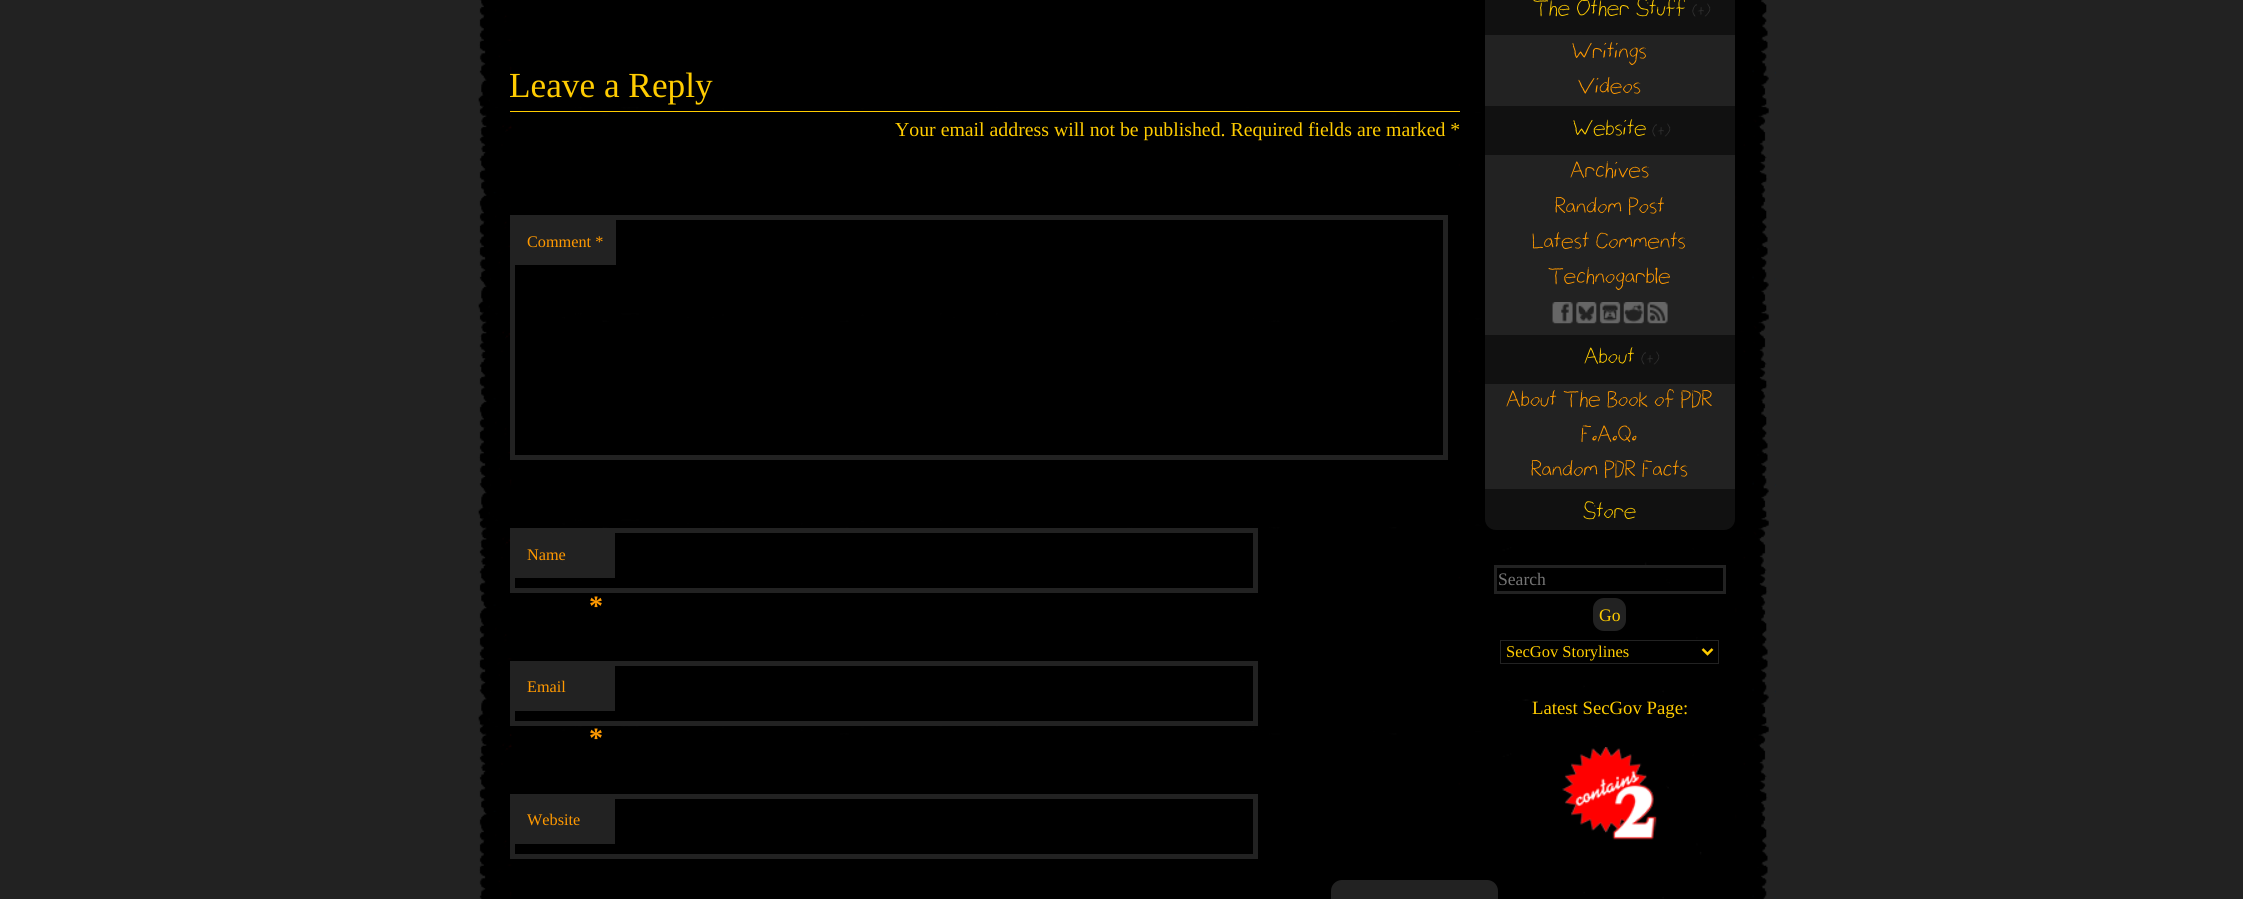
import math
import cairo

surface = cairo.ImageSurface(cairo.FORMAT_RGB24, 2243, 899)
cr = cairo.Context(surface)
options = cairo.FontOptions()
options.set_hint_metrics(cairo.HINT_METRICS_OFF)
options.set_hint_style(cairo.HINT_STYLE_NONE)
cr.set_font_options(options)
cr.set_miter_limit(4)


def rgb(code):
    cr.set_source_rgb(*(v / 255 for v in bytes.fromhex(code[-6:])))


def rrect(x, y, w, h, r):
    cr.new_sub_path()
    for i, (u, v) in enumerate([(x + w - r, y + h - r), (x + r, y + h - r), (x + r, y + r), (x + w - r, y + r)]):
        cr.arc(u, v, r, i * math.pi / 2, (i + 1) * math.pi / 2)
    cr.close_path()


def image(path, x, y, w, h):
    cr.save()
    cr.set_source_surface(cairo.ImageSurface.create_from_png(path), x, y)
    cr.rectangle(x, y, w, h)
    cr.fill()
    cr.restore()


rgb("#222222")
cr.paint()
image("img/1.png", 478, 0, 1298, 899)
rgb("#ffcc00")
cr.rectangle(510, 111, 950, 1)
cr.fill()
rgb("#000000")
cr.rectangle(1393, 321, 3, 1)
cr.fill()
cr.rectangle(512.5, 217.5, 933, 240)
rgb("#222222")
cr.set_line_width(5)
cr.stroke()
cr.rectangle(515, 220, 101, 45)
cr.fill()
cr.rectangle(512.5, 530.5, 743, 60)
cr.stroke()
cr.rectangle(515, 533, 100, 45)
cr.fill()
cr.rectangle(512.5, 663.5, 743, 60)
cr.stroke()
cr.rectangle(515, 666, 100, 45)
cr.fill()
cr.rectangle(512.5, 796.5, 743, 60)
cr.stroke()
cr.rectangle(515, 799, 100, 45)
cr.fill()
rrect(1331, 880, 167, 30, 11)
cr.fill()
rgb("#111111")
rrect(1485, -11, 250, 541, 11)
cr.fill()
rgb("#222222")
cr.rectangle(1485, 35, 250, 71)
cr.fill()
cr.rectangle(1485, 155, 250, 180)
cr.fill()
image("img/2.png", 1552, 302, 116, 22)
cr.rectangle(1485, 384, 250, 105)
cr.fill()
rgb("#000000")
cr.rectangle(1667, 580, 2, 2)
cr.fill()
cr.rectangle(1495.5, 566.5, 229, 26)
rgb("#222222")
cr.set_line_width(3)
cr.stroke()
rrect(1593, 598, 33, 33, 11)
cr.fill()
rgb("#000000")
cr.rectangle(1700, 645, 2, 3)
cr.fill()
cr.rectangle(1500.5, 640.5, 218, 23)
rgb("#222222")
cr.set_line_width(1)
cr.stroke()
cr.new_path()
cr.move_to(1702.5, 649)
cr.line_to(1707.5, 654)
cr.line_to(1712.5, 649)
rgb("#ffcc00")
cr.set_line_width(2.5)
cr.stroke()
image("img/3.png", 1562, 747, 95, 93)
cr.select_font_face("Liberation Serif")
cr.set_font_size(35.25)
cr.move_to(509, 97)
cr.show_text("Leave a Reply")
cr.set_font_size(19.8)
cr.move_to(895, 136)
cr.show_text("Your email address will not be published. Required fields are marked *")
cr.set_font_size(16.25)
rgb("#ff9900")
cr.move_to(527, 247)
cr.show_text("Comment *")
cr.move_to(527, 560)
cr.show_text("Name")
cr.select_font_face("Liberation Serif", cairo.FONT_SLANT_NORMAL, cairo.FONT_WEIGHT_BOLD)
cr.set_font_size(28)
cr.move_to(589, 615)
cr.show_text("*")
cr.select_font_face("Liberation Serif")
cr.set_font_size(16.25)
cr.move_to(527, 692)
cr.show_text("Email")
cr.select_font_face("Liberation Serif", cairo.FONT_SLANT_NORMAL, cairo.FONT_WEIGHT_BOLD)
cr.set_font_size(28)
cr.move_to(589, 747)
cr.show_text("*")
cr.select_font_face("Liberation Serif")
cr.set_font_size(16.25)
cr.move_to(527, 825)
cr.show_text("Website")
cr.select_font_face("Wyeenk")
cr.set_font_size(17.5)
rgb("#ffcc00")
cr.move_to(1533, 15)
cr.show_text("The Other Stuff")
cr.set_font_size(12)
rgb("#333333")
cr.move_to(1692, 15)
cr.show_text("(+)")
cr.set_font_size(17.6)
rgb("#ff9900")
cr.move_to(1572, 58)
cr.show_text("Writings")
cr.move_to(1578, 93)
cr.show_text("Videos")
cr.set_font_size(17.5)
rgb("#ffcc00")
cr.move_to(1573, 135)
cr.show_text("Website")
cr.set_font_size(12)
rgb("#333333")
cr.move_to(1652, 135)
cr.show_text("(+)")
cr.set_font_size(17.6)
rgb("#ff9900")
for x, y, s in [
    (1570, 177, "Archives"),
    (1555, 213, "Random Post"),
    (1532, 248, "Latest Comments"),
    (1548, 283, "Technogarble"),
]:
    cr.move_to(x, y)
    cr.show_text(s)
cr.set_font_size(17.5)
rgb("#ffcc00")
cr.move_to(1584, 363)
cr.show_text("About")
cr.set_font_size(12)
rgb("#333333")
cr.move_to(1641, 363)
cr.show_text("(+)")
cr.set_font_size(17.6)
rgb("#ff9900")
for x, y, s in [
    (1506, 406, "About The Book of PDR"),
    (1581, 441, "F.A.Q."),
    (1531, 476, "Random PDR Facts"),
]:
    cr.move_to(x, y)
    cr.show_text(s)
cr.set_font_size(17.5)
rgb("#ffcc00")
cr.move_to(1583, 518)
cr.show_text("Store")
cr.select_font_face("Liberation Serif")
cr.set_font_size(17.6)
rgb("#757575")
cr.move_to(1498, 585)
cr.show_text("Search")
rgb("#ffcc00")
cr.move_to(1599, 621)
cr.show_text("Go")
cr.set_font_size(16.5)
cr.move_to(1506, 657)
cr.show_text("SecGov Storylines")
cr.set_font_size(18.75)
cr.move_to(1532, 714)
cr.show_text("Latest SecGov Page:")
surface.write_to_png("page.png")
